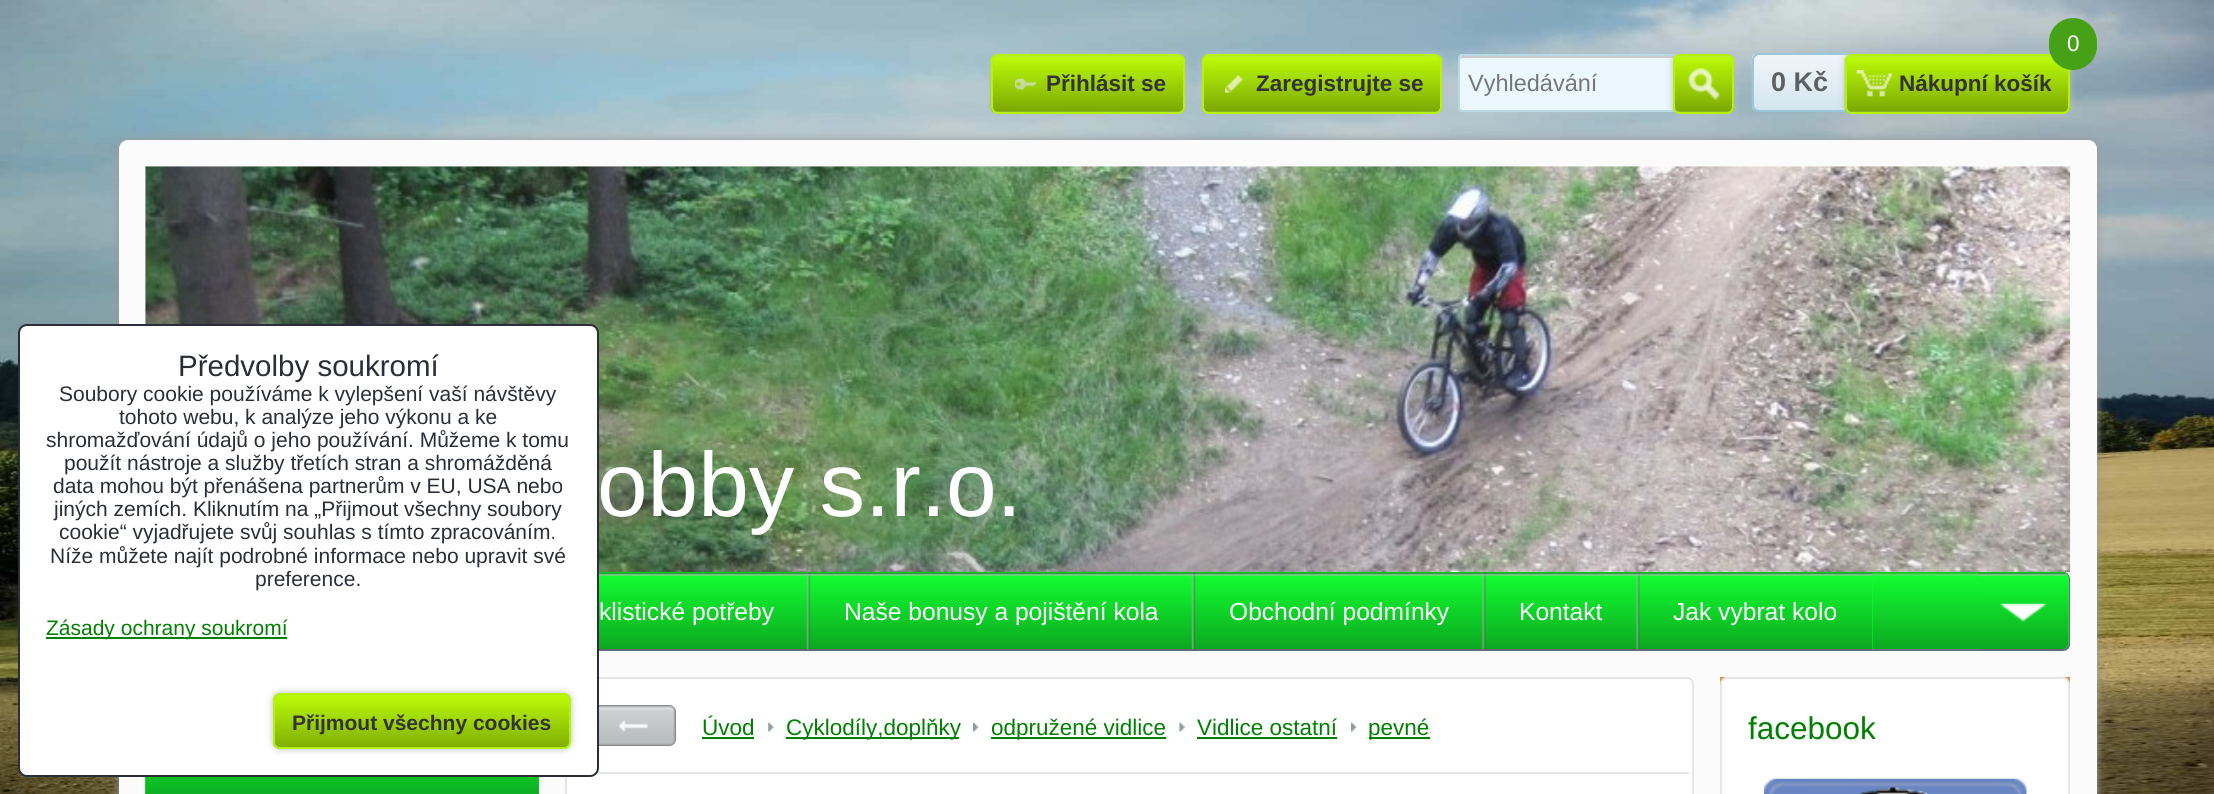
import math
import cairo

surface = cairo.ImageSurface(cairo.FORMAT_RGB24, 2214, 794)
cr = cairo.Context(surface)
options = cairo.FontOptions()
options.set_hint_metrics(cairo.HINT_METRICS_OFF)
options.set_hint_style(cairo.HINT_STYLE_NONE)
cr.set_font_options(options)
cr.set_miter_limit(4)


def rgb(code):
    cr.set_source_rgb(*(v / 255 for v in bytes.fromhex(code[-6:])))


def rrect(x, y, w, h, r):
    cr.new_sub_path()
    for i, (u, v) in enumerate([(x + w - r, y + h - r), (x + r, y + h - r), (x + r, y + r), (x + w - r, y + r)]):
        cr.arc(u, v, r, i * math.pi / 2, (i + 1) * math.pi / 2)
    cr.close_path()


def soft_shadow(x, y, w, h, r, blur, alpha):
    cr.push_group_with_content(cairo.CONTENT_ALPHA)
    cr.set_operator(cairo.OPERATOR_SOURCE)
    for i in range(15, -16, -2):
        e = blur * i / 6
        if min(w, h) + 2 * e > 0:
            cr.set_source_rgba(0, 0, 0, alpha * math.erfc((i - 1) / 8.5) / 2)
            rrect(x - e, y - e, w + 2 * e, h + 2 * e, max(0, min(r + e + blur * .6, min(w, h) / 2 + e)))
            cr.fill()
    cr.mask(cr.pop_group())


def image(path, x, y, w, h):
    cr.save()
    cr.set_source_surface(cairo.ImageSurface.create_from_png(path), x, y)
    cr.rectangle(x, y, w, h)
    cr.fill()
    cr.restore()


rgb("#ffffff")
cr.paint()
image("img/1.png", 0, 0, 2214, 794)
rgb("#999999")
soft_shadow(119, 140, 1978, 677, 9, 4.5, 1)
rgb("#fbfbfb")
rrect(119, 140, 1978, 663, 9)
cr.fill()
rgb("#fffaf7")
cr.rectangle(145, 166, 1925, 158)
cr.fill()
image("img/12.png", 145, 166, 1926, 407)
rgb("#12ff31")
cr.new_path()
cr.move_to(152, 572)
cr.line_to(2063, 572)
cr.curve_to(2066, 572, 2068, 575, 2068, 579)
cr.line_to(2068, 644)
cr.curve_to(2068, 647, 2066, 649, 2063, 649)
cr.line_to(152, 649)
cr.curve_to(149, 649, 147, 647, 147, 644)
cr.line_to(147, 579)
cr.curve_to(147, 575, 149, 572, 152, 572)
cr.close_path()
cr.fill()
image("img/13.png", 1873, 572, 197, 78)
rgb("#657178")
cr.set_fill_rule(cairo.FILL_RULE_EVEN_ODD)
cr.new_path()
cr.move_to(152, 572)
cr.line_to(2063, 572)
cr.curve_to(2067, 572, 2070, 575, 2070, 579)
cr.line_to(2070, 644)
cr.curve_to(2070, 648, 2067, 651, 2063, 651)
cr.line_to(152, 651)
cr.curve_to(148, 651, 145, 648, 145, 644)
cr.line_to(145, 579)
cr.curve_to(145, 575, 148, 572, 152, 572)
cr.close_path()
cr.move_to(152, 572)
cr.line_to(2063, 572)
cr.curve_to(2066, 572, 2068, 575, 2068, 579)
cr.line_to(2068, 644)
cr.curve_to(2068, 647, 2066, 649, 2063, 649)
cr.line_to(152, 649)
cr.curve_to(149, 649, 147, 647, 147, 644)
cr.line_to(147, 579)
cr.curve_to(147, 575, 149, 572, 152, 572)
cr.close_path()
cr.fill()
rgb("#ffffff")
rrect(566, 678, 1127, 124, 6)
cr.fill_preserve()
rgb("#e3e5e6")
cr.stroke()
cr.rectangle(596, 772, 1093, 2)
cr.fill()
rgb("#7d7d7d")
rrect(593, 705, 83, 41, 7)
cr.fill()
rgb("#ffffff")
rrect(19, 325, 579, 451, 8)
cr.fill_preserve()
rgb("#2b2e38")
cr.stroke()
rgb("#008000")
cr.rectangle(46, 637, 241, 2)
cr.fill()
rgb("#b6bfc3")
soft_shadow(273, 693, 298, 56, 7, 3.5, 1)
image("img/2.png", 273, 694, 298, 55)
rrect(274, 694, 296, 54, 6)
rgb("#b4f308")
cr.stroke()
rgb("#b6bfc3")
soft_shadow(991, 54, 194, 60, 7, 3.5, 1)
image("img/3.png", 990, 55, 195, 58)
rrect(992, 55, 192, 58, 6)
rgb("#b4f308")
cr.stroke()
image("img/4.png", 1015, 78, 21, 12)
rgb("#b6bfc3")
soft_shadow(1202, 54, 240, 60, 7, 3.5, 1)
image("img/5.png", 1202, 56, 240, 57)
rrect(1203, 55, 238, 58, 6)
rgb("#b4f308")
cr.stroke()
image("img/6.png", 1225, 75, 18, 18)
rgb("#ebf8ff")
rrect(1458, 54, 224, 58, 5)
cr.fill()
rgb("#cccccc")
cr.set_fill_rule(cairo.FILL_RULE_WINDING)
cr.new_path()
cr.move_to(1463, 58)
cr.line_to(1676, 58)
cr.curve_to(1678, 58, 1680, 59, 1680, 61)
cr.curve_to(1680, 58, 1679, 56, 1676, 56)
cr.line_to(1462, 56)
cr.curve_to(1460, 57, 1460, 59, 1460, 61)
cr.curve_to(1460, 59, 1461, 58, 1463, 58)
cr.close_path()
cr.fill()
rrect(1459, 55, 222, 56, 4)
rgb("#b9d9e6")
cr.stroke()
rgb("#b6bfc3")
soft_shadow(1673, 54, 61, 60, 7, 3.5, 1)
image("img/7.png", 1673, 55, 62, 58)
rrect(1674, 55, 59, 58, 6)
rgb("#b4f308")
cr.stroke()
image("img/8.png", 1688, 68, 33, 32)
image("img/9.png", 1751, 54, 106, 57)
rrect(1753, 54, 103, 57, 6)
rgb("#9cc7da")
cr.stroke()
rgb("#b6bfc3")
soft_shadow(1845, 54, 225, 60, 7, 3.5, 1)
image("img/10.png", 1844, 55, 227, 58)
rrect(1846, 55, 223, 58, 6)
rgb("#b4f308")
cr.stroke()
rgb("#47a116")
rrect(2049, 18, 48, 52, 24)
cr.fill()
image("img/11.png", 1856, 70, 36, 27)
image("img/15.png", 599, 578, 210, 72)
image("img/17.png", 808, 578, 386, 72)
image("img/18.png", 806, 572, 5, 78)
image("img/16.png", 599, 572, 210, 4)
image("img/20.png", 1193, 578, 291, 72)
image("img/18.png", 1191, 572, 5, 78)
image("img/19.png", 808, 572, 386, 4)
image("img/22.png", 1484, 578, 154, 72)
image("img/23.png", 1482, 572, 4, 78)
image("img/21.png", 1193, 572, 291, 4)
image("img/25.png", 1638, 578, 235, 72)
image("img/23.png", 1636, 572, 4, 78)
image("img/24.png", 1484, 572, 154, 4)
image("img/26.png", 1638, 572, 235, 4)
rgb("#12ff31")
cr.new_path()
cr.move_to(1981, 572)
cr.line_to(2062, 572)
cr.curve_to(2066, 572, 2069, 575, 2069, 579)
cr.line_to(2069, 642)
cr.curve_to(2069, 646, 2066, 649, 2062, 649)
cr.line_to(1981, 649)
cr.close_path()
cr.fill()
image("img/28.png", 1977, 572, 88, 4)
image("img/14.png", 599, 572, 1468, 4)
image("img/27.png", 1981, 578, 88, 72)
image("img/29.png", 2000, 603, 46, 19)
image("img/30.png", 599, 705, 77, 41)
image("img/31.png", 619, 720, 29, 12)
rgb("#008000")
cr.rectangle(702, 737, 52, 2)
cr.fill()
image("img/32.png", 768, 722, 6, 10)
cr.rectangle(786, 737, 173, 2)
cr.fill()
image("img/33.png", 973, 722, 6, 10)
cr.rectangle(991, 737, 175, 2)
cr.fill()
image("img/34.png", 1179, 722, 6, 10)
cr.rectangle(1197, 737, 140, 2)
cr.fill()
image("img/33.png", 1351, 722, 6, 10)
cr.rectangle(1369, 737, 61, 2)
cr.fill()
rgb("#e68c3e")
cr.rectangle(1720, 677, 350, 7)
cr.fill()
rgb("#ffffff")
rrect(1721, 678, 348, 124, 6)
cr.fill_preserve()
rgb("#e3e5e6")
cr.stroke()
image("img/35.png", 1764, 778, 263, 16)
rgb("#12ff31")
cr.rectangle(145, 777, 394, 17)
cr.fill()
image("img/36.png", 145, 777, 394, 17)
cr.select_font_face("Liberation Sans")
cr.set_font_size(29.5)
rgb("#2b2e38")
cr.move_to(178, 376)
cr.show_text("Předvolby soukromí")
cr.set_font_size(21)
for x, y, s in [
    (59, 401, "Soubory cookie používáme k vylepšení vaší návštěvy"),
    (119, 424, "tohoto webu, k analýze jeho výkonu a ke"),
    (46, 447, "shromažďování údajů o jeho používání. Můžeme k tomu"),
    (64, 470, "použít nástroje a služby třetích stran a shromážděná"),
    (53, 493, "data mohou být přenášena partnerům v EU, USA nebo"),
    (54, 516, "jiných zemích. Kliknutím na „Přijmout všechny soubory"),
    (59, 539, "cookie“ vyjadřujete svůj souhlas s tímto zpracováním."),
    (50, 563, "Níže můžete najít podrobné informace nebo upravit své"),
    (255, 586, "preference."),
]:
    cr.move_to(x, y)
    cr.show_text(s)
rgb("#008000")
cr.move_to(46, 635)
cr.show_text("Zásady ochrany soukromí")
cr.select_font_face("Liberation Sans", cairo.FONT_SLANT_NORMAL, cairo.FONT_WEIGHT_BOLD)
rgb("#333333")
cr.move_to(292, 730)
cr.show_text("Přijmout všechny cookies")
cr.set_font_size(22.5)
cr.move_to(1046, 91)
cr.show_text("Přihlásit se")
cr.move_to(1256, 91)
cr.show_text("Zaregistrujte se")
cr.select_font_face("Liberation Sans")
cr.set_font_size(23.5)
rgb("#777777")
cr.move_to(1468, 91)
cr.show_text("Vyhledávání")
cr.set_font_size(22.5)
rgb("#ffffff")
cr.move_to(2067, 51)
cr.show_text("0")
cr.select_font_face("Liberation Sans", cairo.FONT_SLANT_NORMAL, cairo.FONT_WEIGHT_BOLD)
cr.set_font_size(27)
rgb("#5c6062")
cr.move_to(1771, 91)
cr.show_text("0 Kč")
cr.set_font_size(22.5)
rgb("#333333")
cr.move_to(1899, 91)
cr.show_text("Nákupní košík")
cr.select_font_face("Liberation Sans")
cr.set_font_size(91)
rgb("#ffffff")
cr.move_to(597, 516)
cr.show_text("obby s.r.o.")
cr.set_font_size(24.6)
for x, y, s in [
    (599, 620, "klistické potřeby"),
    (844, 620, "Naše bonusy a pojištění kola"),
    (1229, 620, "Obchodní podmínky"),
    (1519, 620, "Kontakt"),
    (1673, 620, "Jak vybrat kolo"),
]:
    cr.move_to(x, y)
    cr.show_text(s)
cr.set_font_size(22.5)
rgb("#008000")
for x, y, s in [
    (702, 735, "Úvod"),
    (786, 735, "Cyklodíly,doplňky"),
    (991, 735, "odpružené vidlice"),
    (1197, 735, "Vidlice ostatní"),
    (1368, 735, "pevné"),
]:
    cr.move_to(x, y)
    cr.show_text(s)
cr.set_font_size(31.5)
cr.move_to(1748, 739)
cr.show_text("facebook")
surface.write_to_png("page.png")
